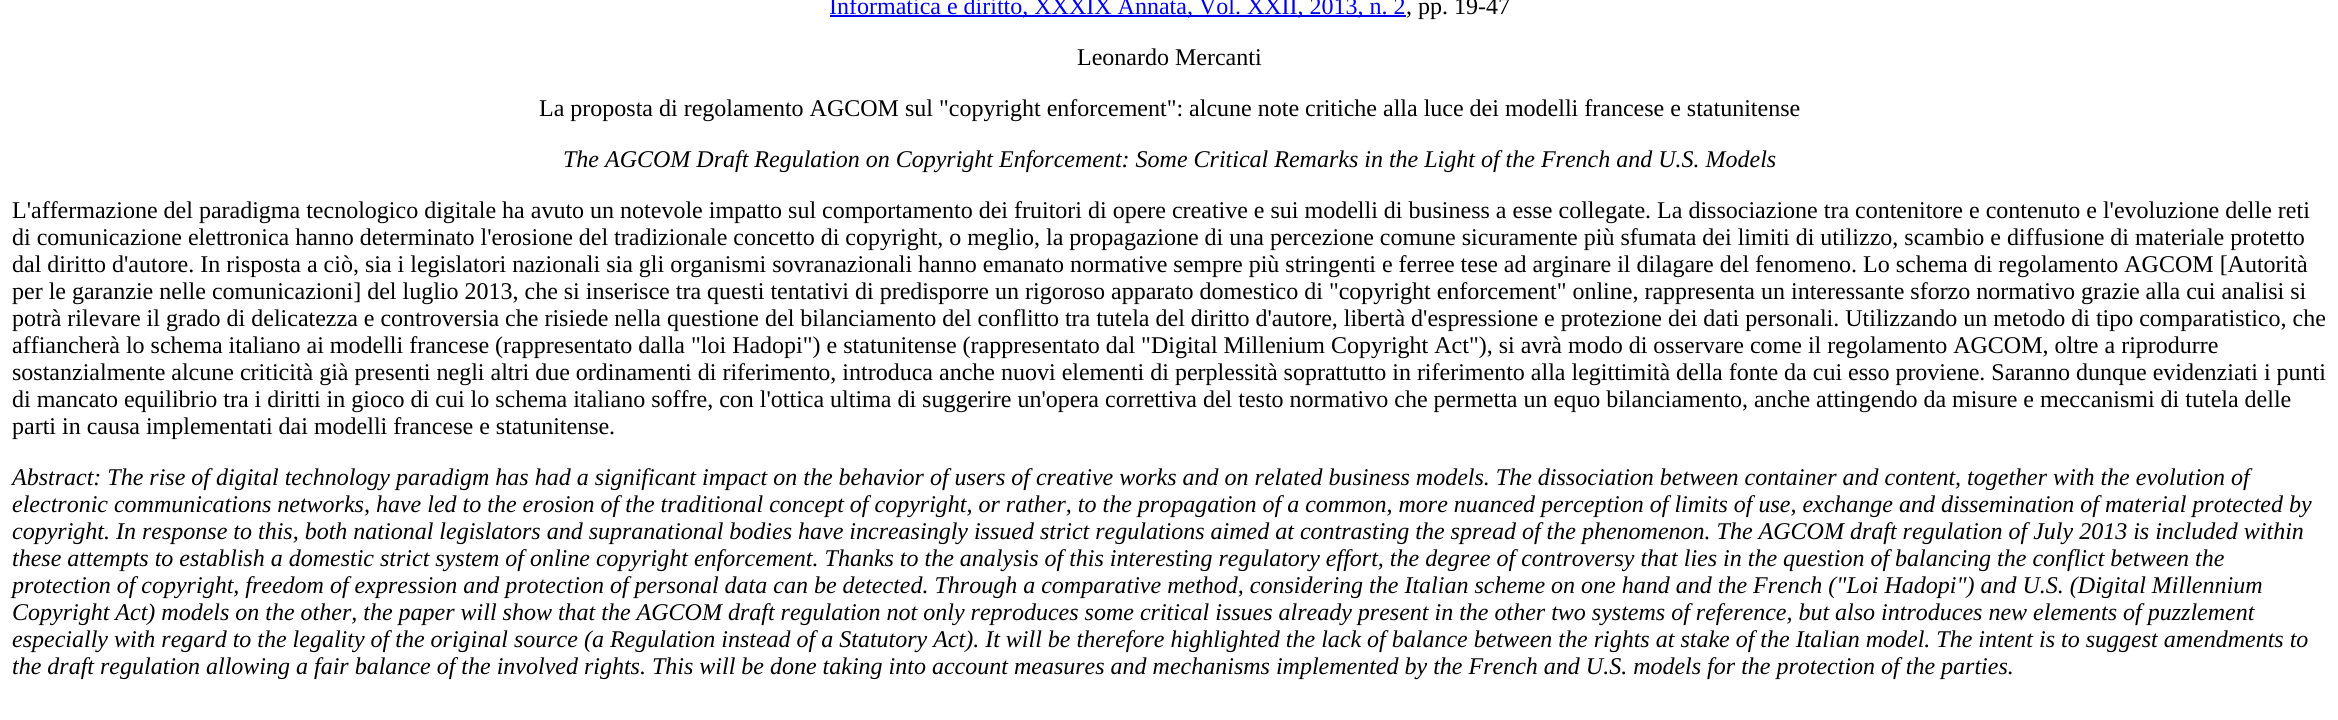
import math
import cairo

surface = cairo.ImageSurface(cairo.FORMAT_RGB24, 2338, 720)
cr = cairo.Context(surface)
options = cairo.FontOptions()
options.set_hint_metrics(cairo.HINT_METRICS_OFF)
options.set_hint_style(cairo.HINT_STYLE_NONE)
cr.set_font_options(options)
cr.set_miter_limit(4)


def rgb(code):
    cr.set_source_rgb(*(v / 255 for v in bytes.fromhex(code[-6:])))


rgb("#ffffff")
cr.paint()
rgb("#0000ee")
cr.rectangle(830, 15, 576, 2)
cr.fill()
cr.select_font_face("Liberation Serif")
cr.set_font_size(24)
cr.move_to(829, 14)
cr.show_text("Informatica e diritto, XXXIX Annata, Vol. XXII, 2013, n. 2")
rgb("#000000")
for x, y, s in [
    (1406, 14, ", pp. 19-47"),
    (1077, 65, "Leonardo Mercanti"),
    (539, 116, "La proposta di regolamento AGCOM sul \"copyright enforcement\": alcune note critiche alla luce dei modelli francese e statunitense"),
]:
    cr.move_to(x, y)
    cr.show_text(s)
cr.select_font_face("Liberation Serif", cairo.FONT_SLANT_ITALIC)
cr.move_to(563, 167)
cr.show_text("The AGCOM Draft Regulation on Copyright Enforcement: Some Critical Remarks in the Light of the French and U.S. Models")
cr.select_font_face("Liberation Serif")
for x, y, s in [
    (12, 218, "L'affermazione del paradigma tecnologico digitale ha avuto un notevole impatto sul comportamento dei fruitori di opere creative e sui modelli di business a esse collegate. La dissociazione tra contenitore e contenuto e l'evoluzione delle reti"),
    (12, 245, "di comunicazione elettronica hanno determinato l'erosione del tradizionale concetto di copyright, o meglio, la propagazione di una percezione comune sicuramente più sfumata dei limiti di utilizzo, scambio e diffusione di materiale protetto"),
    (12, 272, "dal diritto d'autore. In risposta a ciò, sia i legislatori nazionali sia gli organismi sovranazionali hanno emanato normative sempre più stringenti e ferree tese ad arginare il dilagare del fenomeno. Lo schema di regolamento AGCOM [Autorità"),
    (12, 299, "per le garanzie nelle comunicazioni] del luglio 2013, che si inserisce tra questi tentativi di predisporre un rigoroso apparato domestico di \"copyright enforcement\" online, rappresenta un interessante sforzo normativo grazie alla cui analisi si"),
    (12, 326, "potrà rilevare il grado di delicatezza e controversia che risiede nella questione del bilanciamento del conflitto tra tutela del diritto d'autore, libertà d'espressione e protezione dei dati personali. Utilizzando un metodo di tipo comparatistico, che"),
    (12, 353, "affiancherà lo schema italiano ai modelli francese (rappresentato dalla \"loi Hadopi\") e statunitense (rappresentato dal \"Digital Millenium Copyright Act\"), si avrà modo di osservare come il regolamento AGCOM, oltre a riprodurre"),
    (12, 380, "sostanzialmente alcune criticità già presenti negli altri due ordinamenti di riferimento, introduca anche nuovi elementi di perplessità soprattutto in riferimento alla legittimità della fonte da cui esso proviene. Saranno dunque evidenziati i punti"),
    (12, 407, "di mancato equilibrio tra i diritti in gioco di cui lo schema italiano soffre, con l'ottica ultima di suggerire un'opera correttiva del testo normativo che permetta un equo bilanciamento, anche attingendo da misure e meccanismi di tutela delle"),
    (12, 434, "parti in causa implementati dai modelli francese e statunitense."),
]:
    cr.move_to(x, y)
    cr.show_text(s)
cr.select_font_face("Liberation Serif", cairo.FONT_SLANT_ITALIC)
for x, y, s in [
    (12, 485, "Abstract: The rise of digital technology paradigm has had a significant impact on the behavior of users of creative works and on related business models. The dissociation between container and content, together with the evolution of"),
    (12, 512, "electronic communications networks, have led to the erosion of the traditional concept of copyright, or rather, to the propagation of a common, more nuanced perception of limits of use, exchange and dissemination of material protected by"),
    (12, 539, "copyright. In response to this, both national legislators and supranational bodies have increasingly issued strict regulations aimed at contrasting the spread of the phenomenon. The AGCOM draft regulation of July 2013 is included within"),
    (12, 566, "these attempts to establish a domestic strict system of online copyright enforcement. Thanks to the analysis of this interesting regulatory effort, the degree of controversy that lies in the question of balancing the conflict between the"),
    (12, 593, "protection of copyright, freedom of expression and protection of personal data can be detected. Through a comparative method, considering the Italian scheme on one hand and the French (\"Loi Hadopi\") and U.S. (Digital Millennium"),
    (12, 620, "Copyright Act) models on the other, the paper will show that the AGCOM draft regulation not only reproduces some critical issues already present in the other two systems of reference, but also introduces new elements of puzzlement"),
    (12, 647, "especially with regard to the legality of the original source (a Regulation instead of a Statutory Act). It will be therefore highlighted the lack of balance between the rights at stake of the Italian model. The intent is to suggest amendments to"),
    (12, 674, "the draft regulation allowing a fair balance of the involved rights. This will be done taking into account measures and mechanisms implemented by the French and U.S. models for the protection of the parties."),
]:
    cr.move_to(x, y)
    cr.show_text(s)
surface.write_to_png("page.png")
